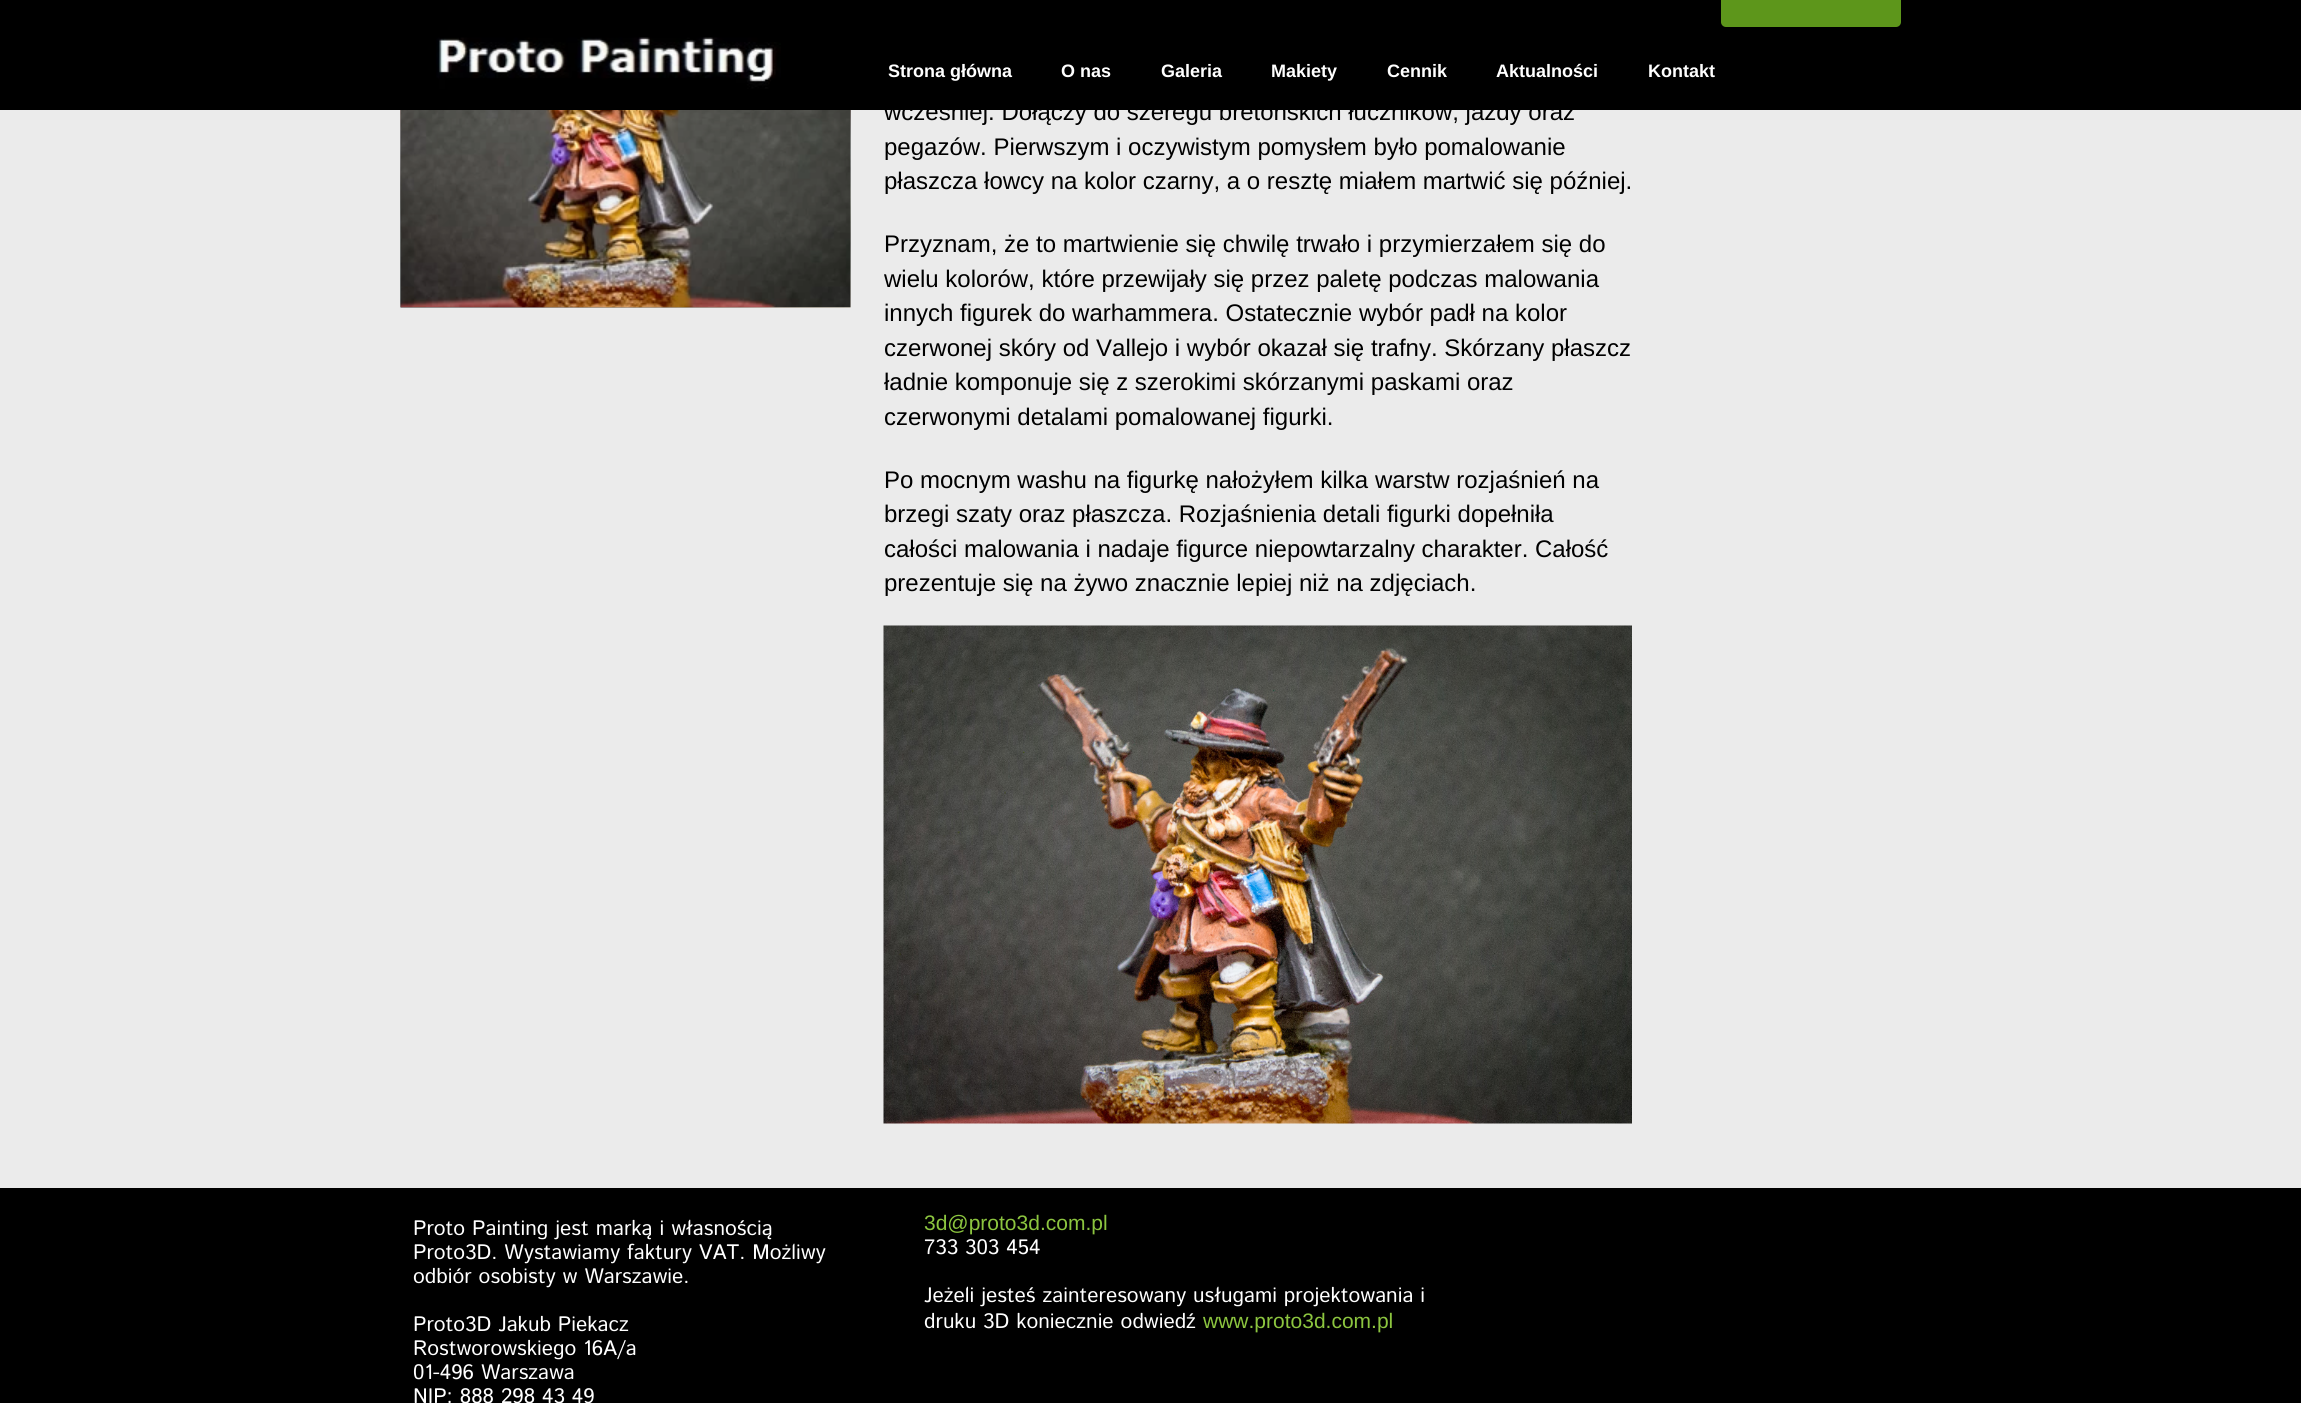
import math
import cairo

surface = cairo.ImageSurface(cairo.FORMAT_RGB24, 2301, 1403)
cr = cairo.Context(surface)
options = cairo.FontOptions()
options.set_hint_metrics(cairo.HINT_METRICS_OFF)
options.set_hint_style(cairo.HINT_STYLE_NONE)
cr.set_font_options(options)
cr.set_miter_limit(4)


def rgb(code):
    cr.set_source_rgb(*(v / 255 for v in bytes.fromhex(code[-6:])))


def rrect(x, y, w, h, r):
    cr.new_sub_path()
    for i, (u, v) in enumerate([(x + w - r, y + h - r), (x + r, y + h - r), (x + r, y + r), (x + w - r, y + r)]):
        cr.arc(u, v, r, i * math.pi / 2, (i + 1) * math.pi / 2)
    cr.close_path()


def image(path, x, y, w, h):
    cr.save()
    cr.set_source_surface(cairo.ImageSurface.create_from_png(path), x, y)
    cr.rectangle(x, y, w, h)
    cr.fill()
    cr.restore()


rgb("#ebebeb")
cr.paint()
rgb("#000000")
cr.rectangle(0, 0, 2301, 110)
cr.fill()
rgb("#5d961b")
rrect(1721, -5, 180, 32, 5)
cr.fill()
image("img/1.png", 436, 37, 345, 52)
image("img/2.png", 400, 110, 451, 198)
image("img/3.png", 400, 110, 451, 198)
image("img/4.png", 883, 625, 749, 499)
rgb("#000000")
cr.rectangle(0, 1188, 2301, 215)
cr.fill()
cr.select_font_face("Liberation Sans", cairo.FONT_SLANT_NORMAL, cairo.FONT_WEIGHT_BOLD)
cr.set_font_size(18)
rgb("#ffffff")
for x, y, s in [
    (888, 77, "Strona główna"),
    (1061, 77, "O nas"),
    (1161, 77, "Galeria"),
    (1271, 77, "Makiety"),
    (1387, 77, "Cennik"),
    (1496, 77, "Aktualności"),
    (1648, 77, "Kontakt"),
]:
    cr.move_to(x, y)
    cr.show_text(s)
cr.select_font_face("Liberation Sans")
cr.set_font_size(24)
rgb("#000000")
for x, y, s in [
    (884, 120, "wcześniej. Dołączy do szeregu bretońskich łuczników, jazdy oraz"),
    (884, 155, "pegazów. Pierwszym i oczywistym pomysłem było pomalowanie"),
    (884, 189, "płaszcza łowcy na kolor czarny, a o resztę miałem martwić się później."),
    (884, 252, "Przyznam, że to martwienie się chwilę trwało i przymierzałem się do"),
    (884, 287, "wielu kolorów, które przewijały się przez paletę podczas malowania"),
    (884, 321, "innych figurek do warhammera. Ostatecznie wybór padł na kolor"),
    (884, 356, "czerwonej skóry od Vallejo i wybór okazał się trafny. Skórzany płaszcz"),
    (884, 390, "ładnie komponuje się z szerokimi skórzanymi paskami oraz"),
    (884, 425, "czerwonymi detalami pomalowanej figurki."),
    (884, 488, "Po mocnym washu na figurkę nałożyłem kilka warstw rozjaśnień na"),
    (884, 522, "brzegi szaty oraz płaszcza. Rozjaśnienia detali figurki dopełniła"),
    (884, 557, "całości malowania i nadaje figurce niepowtarzalny charakter. Całość"),
    (884, 591, "prezentuje się na żywo znacznie lepiej niż na zdjęciach."),
]:
    cr.move_to(x, y)
    cr.show_text(s)
cr.select_font_face("Istok Web")
cr.set_font_size(21)
rgb("#ffffff")
for x, y, s in [
    (413, 1235, "Proto Painting jest marką i własnością"),
    (413, 1259, "Proto3D. Wystawiamy faktury VAT. Możliwy"),
    (413, 1283, "odbiór osobisty w Warszawie."),
    (413, 1331, "Proto3D Jakub Piekacz"),
    (413, 1355, "Rostworowskiego 16A/a"),
    (413, 1379, "01-496 Warszawa"),
    (413, 1403, "NIP: 888 298 43 49"),
]:
    cr.move_to(x, y)
    cr.show_text(s)
cr.select_font_face("Liberation Sans")
rgb("#8cc53f")
cr.move_to(924, 1230)
cr.show_text("3d@proto3d.com.pl")
cr.select_font_face("Istok Web")
rgb("#ffffff")
for x, y, s in [
    (924, 1254, "733 303 454"),
    (924, 1302, "Jeżeli jesteś zainteresowany usługami projektowania i"),
    (924, 1328, "druku 3D koniecznie odwiedź"),
]:
    cr.move_to(x, y)
    cr.show_text(s)
cr.select_font_face("Liberation Sans")
rgb("#8cc53f")
cr.move_to(1203, 1328)
cr.show_text("www.proto3d.com.pl")
surface.write_to_png("page.png")
